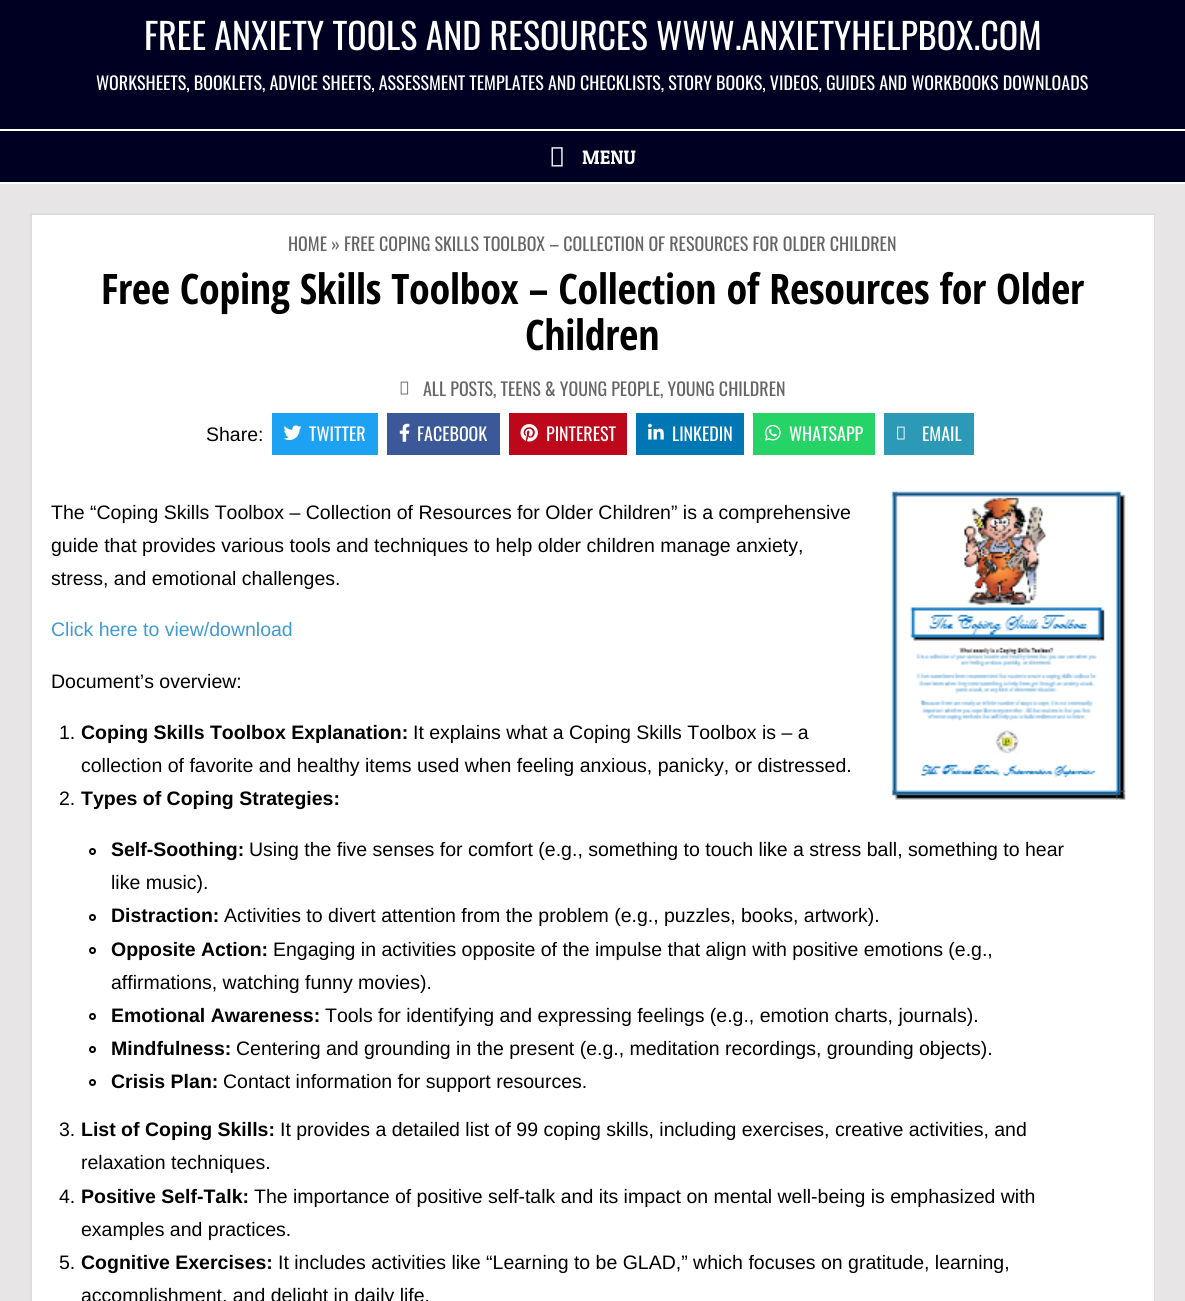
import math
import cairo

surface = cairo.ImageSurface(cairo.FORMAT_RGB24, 1185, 1301)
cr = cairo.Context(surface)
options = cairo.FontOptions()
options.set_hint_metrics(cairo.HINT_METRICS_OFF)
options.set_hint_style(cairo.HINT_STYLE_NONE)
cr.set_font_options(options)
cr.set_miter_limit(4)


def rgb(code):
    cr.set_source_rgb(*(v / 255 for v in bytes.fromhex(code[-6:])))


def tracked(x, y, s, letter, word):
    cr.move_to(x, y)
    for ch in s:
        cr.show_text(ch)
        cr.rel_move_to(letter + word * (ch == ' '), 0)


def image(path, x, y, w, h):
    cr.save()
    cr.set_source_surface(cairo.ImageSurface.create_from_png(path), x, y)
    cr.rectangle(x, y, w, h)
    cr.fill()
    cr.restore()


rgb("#e8e5e6")
cr.paint()
for x, y, w, h, color in [
    (0, 0, 1185, 129, "#000023"),
    (0, 131, 1185, 51, "#000023"),
    (0, 129, 1185, 2, "#ffffff"),
    (0, 182, 1185, 2, "#ffffff"),
]:
    rgb(color)
    cr.rectangle(x, y, w, h)
    cr.fill()
image("img/1.png", 551, 147, 12, 20)
cr.rectangle(34, 217, 1118, 1084)
cr.fill()
cr.rectangle(31, 214, 1123, 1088)
rgb("#dddddd")
cr.stroke()
cr.rectangle(33, 216, 1120, 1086)
rgb("#ffffff")
cr.stroke()
image("img/2.png", 400, 381, 9, 14)
rgb("#1da1f2")
cr.rectangle(272, 413, 106, 42)
cr.fill()
image("img/3.png", 283, 425, 19, 16)
rgb("#3b5998")
cr.rectangle(387, 413, 113, 42)
cr.fill()
image("img/4.png", 399, 423, 11, 19)
rgb("#bd081c")
cr.rectangle(509, 413, 118, 42)
cr.fill()
image("img/5.png", 520, 424, 18, 18)
rgb("#0077b5")
cr.rectangle(636, 413, 108, 42)
cr.fill()
image("img/6.png", 648, 423, 16, 17)
rgb("#25d366")
cr.rectangle(753, 413, 122, 42)
cr.fill()
image("img/7.png", 765, 424, 16, 17)
rgb("#2c9ab7")
cr.rectangle(884, 413, 90, 42)
cr.fill()
image("img/8.png", 897, 426, 8, 14)
image("img/9.png", 891, 490, 235, 310)
cr.arc(92.5, 851.5, 2.5, 0, 2 * math.pi)
rgb("#000000")
cr.stroke()
cr.arc(92.5, 917.5, 2.5, 0, 2 * math.pi)
cr.stroke()
cr.arc(92.5, 950.5, 2.5, 0, 2 * math.pi)
cr.stroke()
cr.arc(92.5, 1016.5, 2.5, 0, 2 * math.pi)
cr.stroke()
cr.arc(92.5, 1049.5, 2.5, 0, 2 * math.pi)
cr.stroke()
cr.arc(92.5, 1082.5, 2.5, 0, 2 * math.pi)
cr.stroke()
cr.select_font_face("Oswald")
cr.set_font_size(36)
rgb("#ffffff")
cr.move_to(144, 50)
cr.show_text("FREE ANXIETY TOOLS AND RESOURCES WWW.ANXIETYHELPBOX.COM")
cr.set_font_size(18)
cr.move_to(96, 90)
cr.show_text("WORKSHEETS, BOOKLETS, ADVICE SHEETS, ASSESSMENT TEMPLATES AND CHECKLISTS, STORY BOOKS, VIDEOS, GUIDES AND WORKBOOKS DOWNLOADS")
cr.select_font_face("Patua One")
cr.set_font_size(19.5)
cr.move_to(582, 164)
cr.show_text("MENU")
cr.select_font_face("Oswald")
cr.set_font_size(18)
rgb("#666666")
cr.move_to(288, 251)
cr.show_text("HOME » FREE COPING SKILLS TOOLBOX – COLLECTION OF RESOURCES FOR OLDER CHILDREN")
cr.select_font_face("Open Sans Condensed", cairo.FONT_SLANT_NORMAL, cairo.FONT_WEIGHT_BOLD)
cr.set_font_size(42)
rgb("#000000")
tracked(101, 304, "Free Coping Skills Toolbox – Collection of Resources for Older", -0.3, 0)
tracked(525, 350, "Children", -0.3, 0)
cr.select_font_face("Oswald")
cr.set_font_size(18)
rgb("#666666")
cr.move_to(423, 396)
cr.show_text("ALL POSTS, TEENS & YOUNG PEOPLE, YOUNG CHILDREN")
cr.select_font_face("Liberation Sans")
cr.set_font_size(19.5)
rgb("#000000")
cr.move_to(206, 441)
cr.show_text("Share:")
cr.select_font_face("Oswald")
cr.set_font_size(18)
rgb("#ffffff")
for x, y, s in [
    (309, 441, "TWITTER"),
    (417, 441, "FACEBOOK"),
    (546, 441, "PINTEREST"),
    (672, 441, "LINKEDIN"),
    (789, 441, "WHATSAPP"),
    (922, 441, "EMAIL"),
]:
    cr.move_to(x, y)
    cr.show_text(s)
cr.select_font_face("Liberation Sans")
cr.set_font_size(19.5)
rgb("#000000")
for x, y, s in [
    (51, 519, "The “Coping Skills Toolbox – Collection of Resources for Older Children” is a comprehensive"),
    (51, 552, "guide that provides various tools and techniques to help older children manage anxiety,"),
    (51, 585, "stress, and emotional challenges."),
]:
    cr.move_to(x, y)
    cr.show_text(s)
rgb("#409bd4")
cr.move_to(51, 636)
cr.show_text("Click here to view/download")
rgb("#000000")
cr.move_to(51, 688)
cr.show_text("Document’s overview:")
cr.move_to(59, 739)
cr.show_text("1.")
cr.select_font_face("Liberation Sans", cairo.FONT_SLANT_NORMAL, cairo.FONT_WEIGHT_BOLD)
cr.move_to(81, 739)
cr.show_text("Coping Skills Toolbox Explanation:")
cr.select_font_face("Liberation Sans")
for x, y, s in [
    (413, 739, "It explains what a Coping Skills Toolbox is – a"),
    (81, 772, "collection of favorite and healthy items used when feeling anxious, panicky, or distressed."),
    (59, 805, "2."),
]:
    cr.move_to(x, y)
    cr.show_text(s)
cr.select_font_face("Liberation Sans", cairo.FONT_SLANT_NORMAL, cairo.FONT_WEIGHT_BOLD)
cr.move_to(81, 805)
cr.show_text("Types of Coping Strategies:")
cr.move_to(111, 856)
cr.show_text("Self-Soothing:")
cr.select_font_face("Liberation Sans")
cr.move_to(249, 856)
cr.show_text("Using the five senses for comfort (e.g., something to touch like a stress ball, something to hear")
cr.move_to(111, 889)
cr.show_text("like music).")
cr.select_font_face("Liberation Sans", cairo.FONT_SLANT_NORMAL, cairo.FONT_WEIGHT_BOLD)
cr.move_to(111, 922)
cr.show_text("Distraction:")
cr.select_font_face("Liberation Sans")
cr.move_to(224, 922)
cr.show_text("Activities to divert attention from the problem (e.g., puzzles, books, artwork).")
cr.select_font_face("Liberation Sans", cairo.FONT_SLANT_NORMAL, cairo.FONT_WEIGHT_BOLD)
cr.move_to(111, 956)
cr.show_text("Opposite Action:")
cr.select_font_face("Liberation Sans")
cr.move_to(273, 956)
cr.show_text("Engaging in activities opposite of the impulse that align with positive emotions (e.g.,")
cr.move_to(111, 989)
cr.show_text("affirmations, watching funny movies).")
cr.select_font_face("Liberation Sans", cairo.FONT_SLANT_NORMAL, cairo.FONT_WEIGHT_BOLD)
cr.move_to(111, 1022)
cr.show_text("Emotional Awareness:")
cr.select_font_face("Liberation Sans")
cr.move_to(325, 1022)
cr.show_text("Tools for identifying and expressing feelings (e.g., emotion charts, journals).")
cr.select_font_face("Liberation Sans", cairo.FONT_SLANT_NORMAL, cairo.FONT_WEIGHT_BOLD)
cr.move_to(111, 1055)
cr.show_text("Mindfulness:")
cr.select_font_face("Liberation Sans")
cr.move_to(236, 1055)
cr.show_text("Centering and grounding in the present (e.g., meditation recordings, grounding objects).")
cr.select_font_face("Liberation Sans", cairo.FONT_SLANT_NORMAL, cairo.FONT_WEIGHT_BOLD)
cr.move_to(111, 1088)
cr.show_text("Crisis Plan:")
cr.select_font_face("Liberation Sans")
cr.move_to(223, 1088)
cr.show_text("Contact information for support resources.")
cr.move_to(59, 1136)
cr.show_text("3.")
cr.select_font_face("Liberation Sans", cairo.FONT_SLANT_NORMAL, cairo.FONT_WEIGHT_BOLD)
cr.move_to(81, 1136)
cr.show_text("List of Coping Skills:")
cr.select_font_face("Liberation Sans")
for x, y, s in [
    (280, 1136, "It provides a detailed list of 99 coping skills, including exercises, creative activities, and"),
    (81, 1169, "relaxation techniques."),
    (59, 1203, "4."),
]:
    cr.move_to(x, y)
    cr.show_text(s)
cr.select_font_face("Liberation Sans", cairo.FONT_SLANT_NORMAL, cairo.FONT_WEIGHT_BOLD)
cr.move_to(81, 1203)
cr.show_text("Positive Self-Talk:")
cr.select_font_face("Liberation Sans")
for x, y, s in [
    (254, 1203, "The importance of positive self-talk and its impact on mental well-being is emphasized with"),
    (81, 1236, "examples and practices."),
    (59, 1269, "5."),
]:
    cr.move_to(x, y)
    cr.show_text(s)
cr.select_font_face("Liberation Sans", cairo.FONT_SLANT_NORMAL, cairo.FONT_WEIGHT_BOLD)
cr.move_to(81, 1269)
cr.show_text("Cognitive Exercises:")
cr.select_font_face("Liberation Sans")
cr.move_to(278, 1269)
cr.show_text("It includes activities like “Learning to be GLAD,” which focuses on gratitude, learning,")
cr.move_to(81, 1302)
cr.show_text("accomplishment, and delight in daily life.")
surface.write_to_png("page.png")
